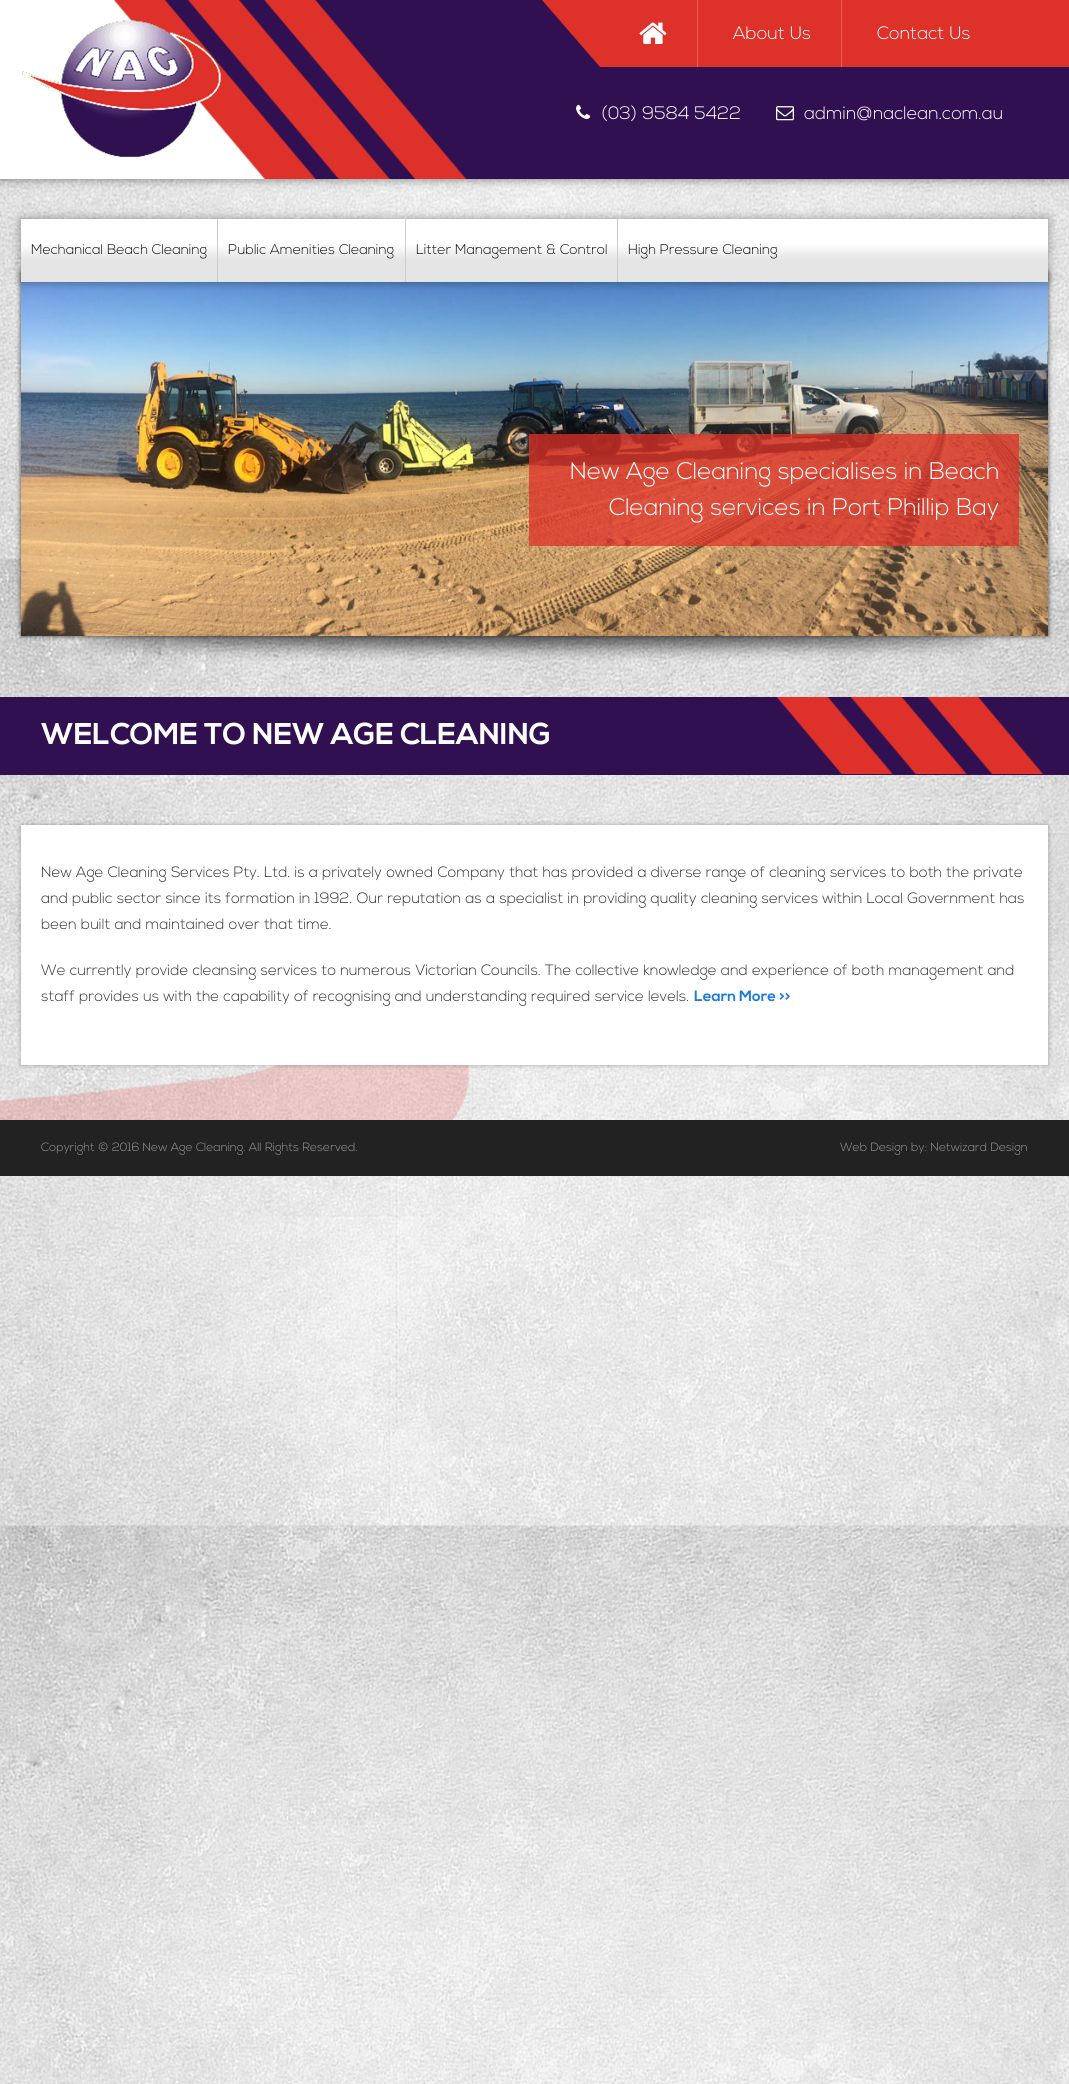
import math
import cairo

surface = cairo.ImageSurface(cairo.FORMAT_RGB24, 1069, 2084)
cr = cairo.Context(surface)
options = cairo.FontOptions()
options.set_hint_metrics(cairo.HINT_METRICS_OFF)
options.set_hint_style(cairo.HINT_STYLE_NONE)
cr.set_font_options(options)
cr.set_miter_limit(4)


def rgb(code):
    cr.set_source_rgb(*(v / 255 for v in bytes.fromhex(code[-6:])))


def rrect(x, y, w, h, r):
    cr.new_sub_path()
    for i, (u, v) in enumerate([(x + w - r, y + h - r), (x + r, y + h - r), (x + r, y + r), (x + w - r, y + r)]):
        cr.arc(u, v, r, i * math.pi / 2, (i + 1) * math.pi / 2)
    cr.close_path()


def soft_shadow(x, y, w, h, r, blur, alpha):
    cr.push_group_with_content(cairo.CONTENT_ALPHA)
    cr.set_operator(cairo.OPERATOR_SOURCE)
    for i in range(15, -16, -2):
        e = blur * i / 6
        if min(w, h) + 2 * e > 0:
            cr.set_source_rgba(0, 0, 0, alpha * math.erfc((i - 1) / 8.5) / 2)
            rrect(x - e, y - e, w + 2 * e, h + 2 * e, max(0, min(r + e + blur * .6, min(w, h) / 2 + e)))
            cr.fill()
    cr.mask(cr.pop_group())


def image(path, x, y, w, h):
    cr.save()
    cr.set_source_surface(cairo.ImageSurface.create_from_png(path), x, y)
    cr.rectangle(x, y, w, h)
    cr.fill()
    cr.restore()


rgb("#ffffff")
cr.paint()
image("img/1.png", 0, 179, 1069, 1905)
rgb("#000000")
soft_shadow(0, 0, 1069, 179, 0, 5, 0.5)
image("img/2.png", 0, 0, 1069, 179)
rgb("#de312a")
cr.rectangle(622, 0, 447, 67)
cr.fill()
cr.new_path()
cr.move_to(542, 0)
cr.line_to(622, 0)
cr.line_to(680, 67)
cr.line_to(600, 67)
cr.close_path()
cr.fill()
rgb("#ea5b55")
cr.rectangle(697, 0, 1, 67)
cr.fill()
image("img/3.png", 639, 22, 28, 22)
cr.rectangle(841, 0, 1, 67)
cr.fill()
image("img/4.png", 21, 20, 200, 137)
image("img/5.png", 576, 104, 15, 15)
image("img/6.png", 776, 106, 18, 15)
rgb("#000000")
soft_shadow(21, 272, 1027, 364, 0, 2.5, 0.7)
image("img/8.png", 21, 282, 1027, 354)
soft_shadow(21, 219, 1027, 63, 0, 5, 0.4)
image("img/7.png", 21, 219, 1027, 63)
rgb("#cccccc")
cr.rectangle(217, 219, 1, 63)
cr.rectangle(405, 219, 1, 63)
cr.rectangle(617, 219, 1, 63)
cr.fill()
cr.set_source_rgba(0.871, 0.192, 0.161, 0.75)
cr.rectangle(529, 434, 490, 112)
cr.fill()
image("img/9.png", 72, 636, 924, 25)
image("img/10.png", 0, 697, 1069, 78)
image("img/11.png", 0, 1065, 470, 55)
rgb("#000000")
soft_shadow(21, 825, 1027, 240, 0, 2.5, 0.3)
rgb("#ffffff")
cr.rectangle(21, 825, 1027, 240)
cr.fill()
rgb("#222222")
cr.rectangle(0, 1120, 1069, 56)
cr.fill()
cr.select_font_face("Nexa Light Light")
cr.set_font_size(18)
rgb("#ffffff")
for x, y, s in [
    (733, 39, "About Us"),
    (877, 39, "Contact Us"),
    (601, 119, "(03) 9584 5422"),
    (804, 119, "admin@naclean.com.au"),
]:
    cr.move_to(x, y)
    cr.show_text(s)
cr.set_font_size(14)
rgb("#111111")
for x, y, s in [
    (31, 254, "Mechanical Beach Cleaning"),
    (228, 254, "Public Amenities Cleaning"),
    (416, 254, "Litter Management & Control"),
    (628, 254, "High Pressure Cleaning"),
]:
    cr.move_to(x, y)
    cr.show_text(s)
cr.set_font_size(24)
rgb("#ffffff")
cr.move_to(570, 479)
cr.show_text("New Age Cleaning specialises in Beach")
cr.move_to(609, 515)
cr.show_text("Cleaning services in Port Phillip Bay")
cr.select_font_face("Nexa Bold", cairo.FONT_SLANT_NORMAL, cairo.FONT_WEIGHT_BOLD)
cr.set_font_size(30)
cr.move_to(41, 744)
cr.show_text("WELCOME TO NEW AGE CLEANING")
cr.select_font_face("Nexa Light Light")
cr.set_font_size(15)
rgb("#333333")
for x, y, s in [
    (41, 877, "New Age Cleaning Services Pty. Ltd. is a privately owned Company that has provided a diverse range of cleaning services to both the private"),
    (41, 903, "and public sector since its formation in 1992. Our reputation as a specialist in providing quality cleaning services within Local Government has"),
    (41, 929, "been built and maintained over that time."),
    (41, 975, "We currently provide cleansing services to numerous Victorian Councils. The collective knowledge and experience of both management and"),
    (41, 1001, "staff provides us with the capability of recognising and understanding required service levels."),
]:
    cr.move_to(x, y)
    cr.show_text(s)
cr.select_font_face("Nexa Bold", cairo.FONT_SLANT_NORMAL, cairo.FONT_WEIGHT_BOLD)
rgb("#1e7cdc")
cr.move_to(694, 1001)
cr.show_text("Learn More >>")
cr.select_font_face("Nexa Light Light")
cr.set_font_size(12)
rgb("#999999")
cr.move_to(41, 1151)
cr.show_text("Copyright © 2016 New Age Cleaning. All Rights Reserved.")
cr.move_to(840, 1151)
cr.show_text("Web Design by: Netwizard Design")
surface.write_to_png("page.png")
